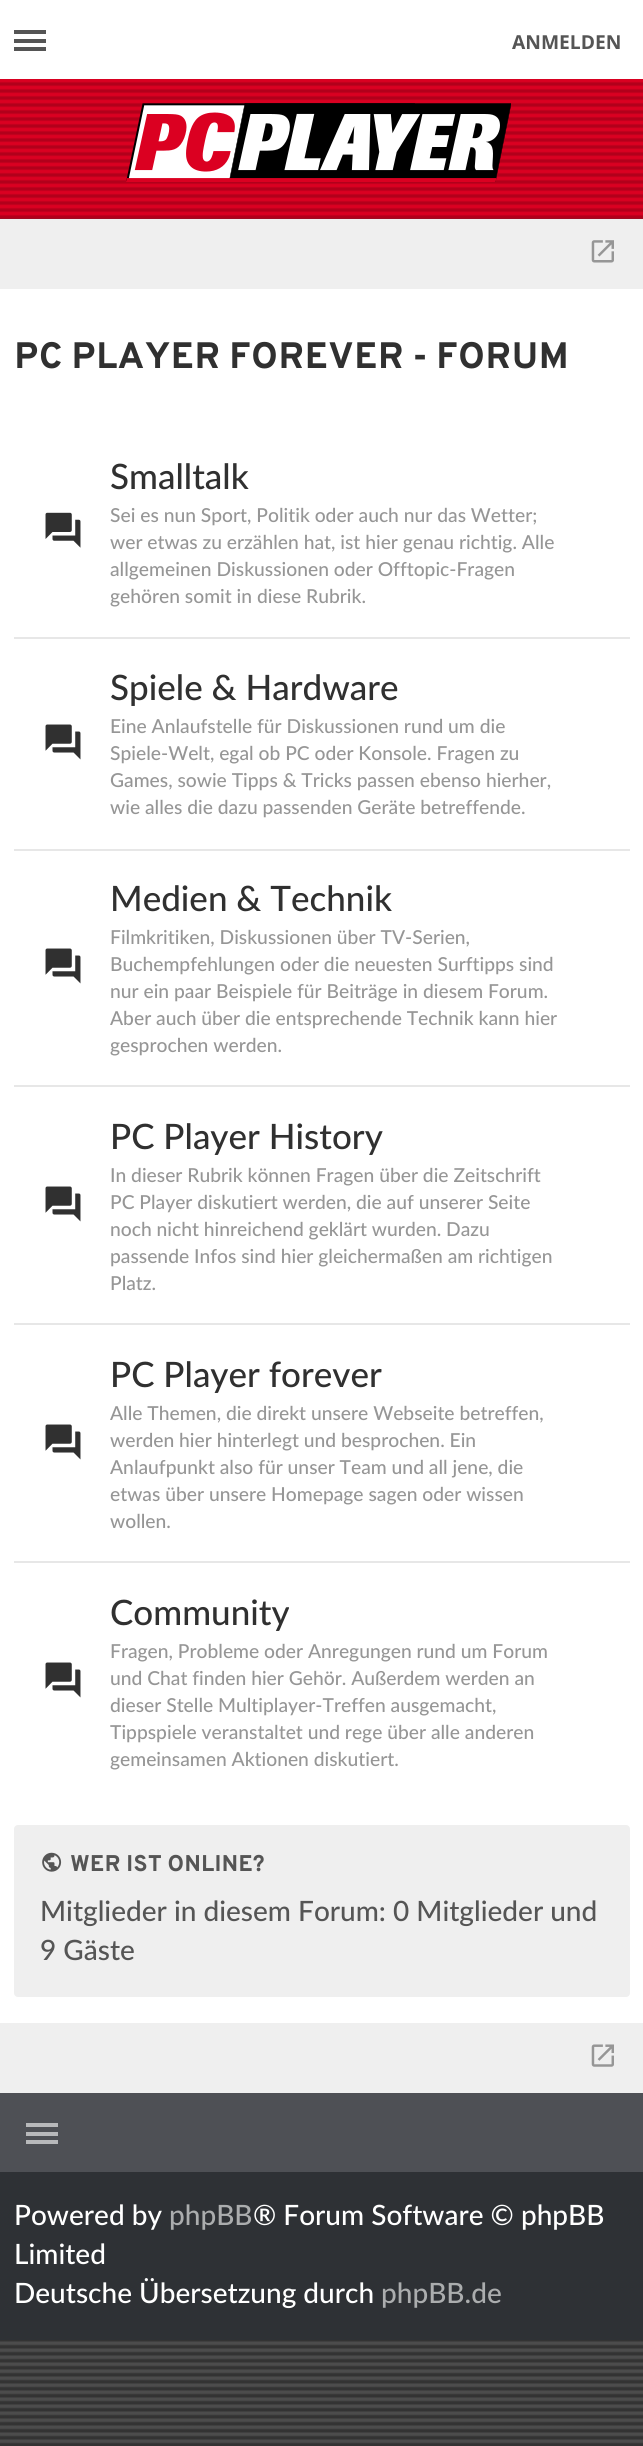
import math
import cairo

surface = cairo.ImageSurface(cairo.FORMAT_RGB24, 643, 2446)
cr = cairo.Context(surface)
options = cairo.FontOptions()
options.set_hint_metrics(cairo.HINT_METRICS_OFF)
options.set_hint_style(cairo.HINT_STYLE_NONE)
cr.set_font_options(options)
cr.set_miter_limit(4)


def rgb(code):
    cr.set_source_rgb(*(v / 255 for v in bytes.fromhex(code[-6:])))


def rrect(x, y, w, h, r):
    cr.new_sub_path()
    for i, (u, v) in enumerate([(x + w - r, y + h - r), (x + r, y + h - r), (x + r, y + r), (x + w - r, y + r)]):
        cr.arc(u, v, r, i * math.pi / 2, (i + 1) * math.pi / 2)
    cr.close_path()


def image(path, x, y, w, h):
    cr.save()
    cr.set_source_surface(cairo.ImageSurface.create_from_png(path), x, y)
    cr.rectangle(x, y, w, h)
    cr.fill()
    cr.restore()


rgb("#ffffff")
cr.paint()
image("img/1.png", 0, 218, 643, 2228)
for x, y, w, h, color in [
    (14, 30, 32, 4, "#555555"),
    (14, 39, 32, 4, "#555555"),
    (14, 47, 32, 4, "#555555"),
]:
    rgb(color)
    cr.rectangle(x, y, w, h)
    cr.fill()
image("img/2.png", 0, 79, 643, 140)
image("img/3.png", 126, 103, 385, 79)
rgb("#ffffff")
cr.rectangle(0, 289, 643, 1734)
cr.fill()
rgb("#efefef")
cr.rectangle(0, 219, 643, 70)
cr.fill()
image("img/4.png", 591, 240, 23, 23)
rgb("#e7e7e7")
cr.rectangle(14, 637, 616, 2)
cr.fill()
image("img/5.png", 45, 512, 36, 36)
image("img/6.png", 45, 724, 36, 36)
cr.rectangle(14, 849, 616, 2)
cr.fill()
cr.rectangle(14, 1085, 616, 2)
cr.fill()
image("img/6.png", 45, 948, 36, 36)
image("img/6.png", 45, 1186, 36, 36)
cr.rectangle(14, 1323, 616, 2)
cr.fill()
cr.rectangle(14, 1561, 616, 2)
cr.fill()
image("img/6.png", 45, 1424, 36, 36)
image("img/6.png", 45, 1662, 36, 36)
rgb("#efefef")
rrect(14, 1825, 616, 172, 4)
cr.fill()
image("img/7.png", 42, 1852, 20, 20)
cr.rectangle(0, 2023, 643, 70)
cr.fill()
image("img/8.png", 591, 2044, 23, 23)
for x, y, w, h, color in [
    (0, 2093, 643, 79, "#4e5055"),
    (26, 2123, 32, 4, "#b8b9bb"),
    (26, 2132, 32, 4, "#b8b9bb"),
    (26, 2140, 32, 4, "#b8b9bb"),
    (0, 2172, 643, 168, "#2e3135"),
]:
    rgb(color)
    cr.rectangle(x, y, w, h)
    cr.fill()
cr.select_font_face("Open Sans", cairo.FONT_SLANT_NORMAL, cairo.FONT_WEIGHT_BOLD)
cr.set_font_size(19.25)
rgb("#555555")
cr.move_to(512, 49)
cr.show_text("ANMELDEN")
cr.select_font_face("Overpass", cairo.FONT_SLANT_NORMAL, cairo.FONT_WEIGHT_BOLD)
cr.set_font_size(36.75)
rgb("#303030")
cr.move_to(14, 368)
cr.show_text("PC PLAYER FOREVER - FORUM")
cr.select_font_face("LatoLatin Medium")
cr.set_font_size(35)
cr.move_to(110, 489)
cr.show_text("Smalltalk")
cr.set_font_size(19.25)
rgb("#969696")
for x, y, s in [
    (110, 522, "Sei es nun Sport, Politik oder auch nur das Wetter;"),
    (110, 549, "wer etwas zu erzählen hat, ist hier genau richtig. Alle"),
    (110, 576, "allgemeinen Diskussionen oder Offtopic-Fragen"),
    (110, 603, "gehören somit in diese Rubrik."),
]:
    cr.move_to(x, y)
    cr.show_text(s)
cr.set_font_size(35)
rgb("#303030")
cr.move_to(110, 700)
cr.show_text("Spiele & Hardware")
cr.set_font_size(19.25)
rgb("#969696")
for x, y, s in [
    (110, 733, "Eine Anlaufstelle für Diskussionen rund um die"),
    (110, 760, "Spiele-Welt, egal ob PC oder Konsole. Fragen zu"),
    (110, 787, "Games, sowie Tipps & Tricks passen ebenso hierher,"),
    (110, 814, "wie alles die dazu passenden Geräte betreffende."),
]:
    cr.move_to(x, y)
    cr.show_text(s)
cr.set_font_size(35)
rgb("#303030")
cr.move_to(110, 911)
cr.show_text("Medien & Technik")
cr.set_font_size(19.25)
rgb("#969696")
for x, y, s in [
    (110, 944, "Filmkritiken, Diskussionen über TV-Serien,"),
    (110, 971, "Buchempfehlungen oder die neuesten Surftipps sind"),
    (110, 998, "nur ein paar Beispiele für Beiträge in diesem Forum."),
    (110, 1025, "Aber auch über die entsprechende Technik kann hier"),
    (110, 1052, "gesprochen werden."),
]:
    cr.move_to(x, y)
    cr.show_text(s)
cr.set_font_size(35)
rgb("#303030")
cr.move_to(110, 1149)
cr.show_text("PC Player History")
cr.set_font_size(19.25)
rgb("#969696")
for x, y, s in [
    (110, 1182, "In dieser Rubrik können Fragen über die Zeitschrift"),
    (110, 1209, "PC Player diskutiert werden, die auf unserer Seite"),
    (110, 1236, "noch nicht hinreichend geklärt wurden. Dazu"),
    (110, 1263, "passende Infos sind hier gleichermaßen am richtigen"),
    (110, 1290, "Platz."),
]:
    cr.move_to(x, y)
    cr.show_text(s)
cr.set_font_size(35)
rgb("#303030")
cr.move_to(110, 1387)
cr.show_text("PC Player forever")
cr.set_font_size(19.25)
rgb("#969696")
for x, y, s in [
    (110, 1420, "Alle Themen, die direkt unsere Webseite betreffen,"),
    (110, 1447, "werden hier hinterlegt und besprochen. Ein"),
    (110, 1474, "Anlaufpunkt also für unser Team und all jene, die"),
    (110, 1501, "etwas über unsere Homepage sagen oder wissen"),
    (110, 1528, "wollen."),
]:
    cr.move_to(x, y)
    cr.show_text(s)
cr.set_font_size(35)
rgb("#303030")
cr.move_to(110, 1625)
cr.show_text("Community")
cr.set_font_size(19.25)
rgb("#969696")
for x, y, s in [
    (110, 1658, "Fragen, Probleme oder Anregungen rund um Forum"),
    (110, 1685, "und Chat finden hier Gehör. Außerdem werden an"),
    (110, 1712, "dieser Stelle Multiplayer-Treffen ausgemacht,"),
    (110, 1739, "Tippspiele veranstaltet und rege über alle anderen"),
    (110, 1766, "gemeinsamen Aktionen diskutiert."),
]:
    cr.move_to(x, y)
    cr.show_text(s)
cr.select_font_face("Overpass", cairo.FONT_SLANT_NORMAL, cairo.FONT_WEIGHT_BOLD)
cr.set_font_size(22.75)
rgb("#555555")
cr.move_to(70, 1871)
cr.show_text("WER IST ONLINE?")
cr.select_font_face("LatoLatin Medium")
cr.set_font_size(28)
cr.move_to(40, 1921)
cr.show_text("Mitglieder in diesem Forum: 0 Mitglieder und")
cr.move_to(40, 1960)
cr.show_text("9 Gäste")
rgb("#ffffff")
cr.move_to(14, 2225)
cr.show_text("Powered by")
rgb("#abadae")
cr.move_to(169, 2225)
cr.show_text("phpBB")
rgb("#ffffff")
for x, y, s in [
    (253, 2225, "® Forum Software © phpBB"),
    (14, 2264, "Limited"),
    (14, 2303, "Deutsche Übersetzung durch"),
]:
    cr.move_to(x, y)
    cr.show_text(s)
rgb("#abadae")
cr.move_to(381, 2303)
cr.show_text("phpBB.de")
surface.write_to_png("page.png")
